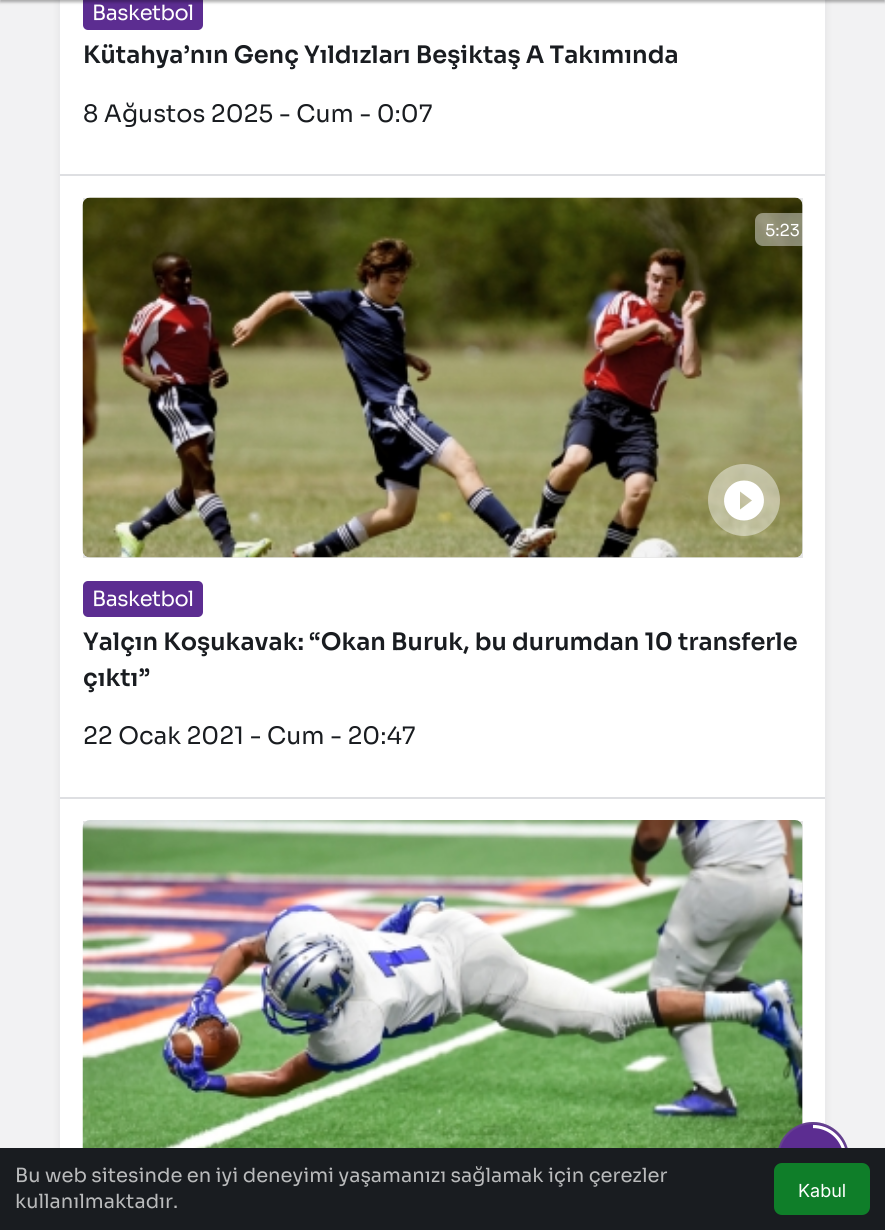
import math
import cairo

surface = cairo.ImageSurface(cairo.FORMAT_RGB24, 885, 1230)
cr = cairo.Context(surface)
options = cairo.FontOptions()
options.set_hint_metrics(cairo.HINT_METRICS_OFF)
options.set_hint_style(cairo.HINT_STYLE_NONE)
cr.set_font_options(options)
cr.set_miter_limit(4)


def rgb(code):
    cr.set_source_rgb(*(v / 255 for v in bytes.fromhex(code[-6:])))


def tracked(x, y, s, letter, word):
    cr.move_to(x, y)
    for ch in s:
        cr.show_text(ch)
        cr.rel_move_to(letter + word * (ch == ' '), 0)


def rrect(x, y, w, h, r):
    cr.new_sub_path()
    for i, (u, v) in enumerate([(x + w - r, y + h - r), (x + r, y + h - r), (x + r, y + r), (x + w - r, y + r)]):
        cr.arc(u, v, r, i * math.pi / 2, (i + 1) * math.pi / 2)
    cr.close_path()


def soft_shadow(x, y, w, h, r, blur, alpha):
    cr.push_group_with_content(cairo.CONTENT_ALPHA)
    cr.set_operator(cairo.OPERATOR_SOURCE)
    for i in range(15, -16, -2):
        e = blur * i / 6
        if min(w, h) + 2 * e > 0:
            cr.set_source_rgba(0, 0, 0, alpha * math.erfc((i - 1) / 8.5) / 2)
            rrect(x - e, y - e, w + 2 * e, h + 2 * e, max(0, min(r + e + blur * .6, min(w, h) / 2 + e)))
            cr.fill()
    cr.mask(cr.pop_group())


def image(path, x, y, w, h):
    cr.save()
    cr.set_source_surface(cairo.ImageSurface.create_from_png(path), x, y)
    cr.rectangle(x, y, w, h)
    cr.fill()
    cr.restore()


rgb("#f2f2f3")
cr.paint()
rgb("#32353d")
soft_shadow(60, -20, 765, 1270, 8, 4, 0.1)
rgb("#ffffff")
cr.rectangle(60, 0, 765, 1148)
cr.fill()
rgb("#5c2d91")
rrect(83, -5, 120, 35, 5)
cr.fill()
rgb("#000000")
soft_shadow(0, -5, 885, 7, 0, 1.5, 0.24)
soft_shadow(0, -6, 885, 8, 0, 2, 0.12)
for x, y, w, h, color in [
    (60, 174, 765, 2, "#dedfe2"),
    (60, 797, 765, 2, "#dedfe2"),
    (83, 198, 720, 360, "#e6e6e6"),
]:
    rgb(color)
    cr.rectangle(x, y, w, h)
    cr.fill()
image("img/1.png", 82, 197, 721, 361)
cr.set_source_rgba(1, 1, 1, 0.43)
cr.arc(744, 500, 36, 0, 2 * math.pi)
cr.fill()
rgb("#ffffff")
cr.new_path()
cr.move_to(740, 509.5)
cr.line_to(752, 500.5)
cr.line_to(740, 491.5)
cr.close_path()
cr.move_to(744, 480.5)
cr.curve_to(763, 480.5, 771, 504, 756.5, 516)
cr.curve_to(753, 519, 748.5, 520.5, 744, 520.5)
cr.curve_to(725, 520.5, 717, 497, 731.5, 485)
cr.curve_to(735, 482, 739.5, 480.5, 744, 480.5)
cr.close_path()
cr.fill()
cr.set_source_rgba(1, 1, 1, 0.43)
rrect(755, 213, 55, 33, 8)
cr.fill()
rgb("#5c2d91")
rrect(83, 581, 120, 36, 5)
cr.fill()
rgb("#e6e6e6")
cr.rectangle(83, 821, 720, 303)
cr.fill()
image("img/2.png", 82, 820, 721, 328)
rgb("#5c2d91")
cr.arc(813, 1158, 36, 0, 2 * math.pi)
cr.fill()
cr.arc(813, 1158, 35, 0, 2 * math.pi)
cr.set_source_rgba(0.502, 0.51, 0.525, 0.25)
cr.stroke()
cr.new_path()
cr.move_to(813, 1126.5)
cr.curve_to(828.5, 1126.5, 841.5, 1137.5, 844.5, 1152.5)
rgb("#ffffff")
cr.set_line_width(3.2)
cr.stroke()
rgb("#191c20")
cr.rectangle(0, 1148, 885, 82)
cr.fill()
rgb("#0f7e29")
rrect(774, 1163, 96, 52, 8)
cr.fill()
cr.select_font_face("Sora")
cr.set_font_size(21)
rgb("#ffffff")
tracked(92, 20, "Basketbol", -0.5, 0)
cr.select_font_face("Sora SemiBold")
cr.set_font_size(24)
rgb("#191c20")
cr.move_to(83, 63)
cr.show_text("Kütahya’nın Genç Yıldızları Beşiktaş A Takımında")
cr.select_font_face("Sora")
cr.move_to(83, 122)
cr.show_text("8 Ağustos 2025 - Cum - 0:07")
cr.set_font_size(16.5)
rgb("#ffffff")
cr.move_to(765, 236)
cr.show_text("5:23")
cr.set_font_size(21)
tracked(92, 606, "Basketbol", -0.5, 0)
cr.select_font_face("Sora SemiBold")
cr.set_font_size(24)
rgb("#191c20")
cr.move_to(83, 650)
cr.show_text("Yalçın Koşukavak: “Okan Buruk, bu durumdan 10 transferle")
cr.move_to(83, 686)
cr.show_text("çıktı”")
cr.select_font_face("Sora")
cr.move_to(83, 744)
cr.show_text("22 Ocak 2021 - Cum - 20:47")
cr.set_font_size(19.5)
rgb("#babbbc")
cr.move_to(15, 1182)
cr.show_text("Bu web sitesinde en iyi deneyimi yaşamanızı sağlamak için çerezler")
cr.move_to(15, 1208)
cr.show_text("kullanılmaktadır.")
cr.select_font_face("Inter")
cr.set_font_size(18)
rgb("#ffffff")
cr.move_to(798, 1197)
cr.show_text("Kabul")
surface.write_to_png("page.png")
